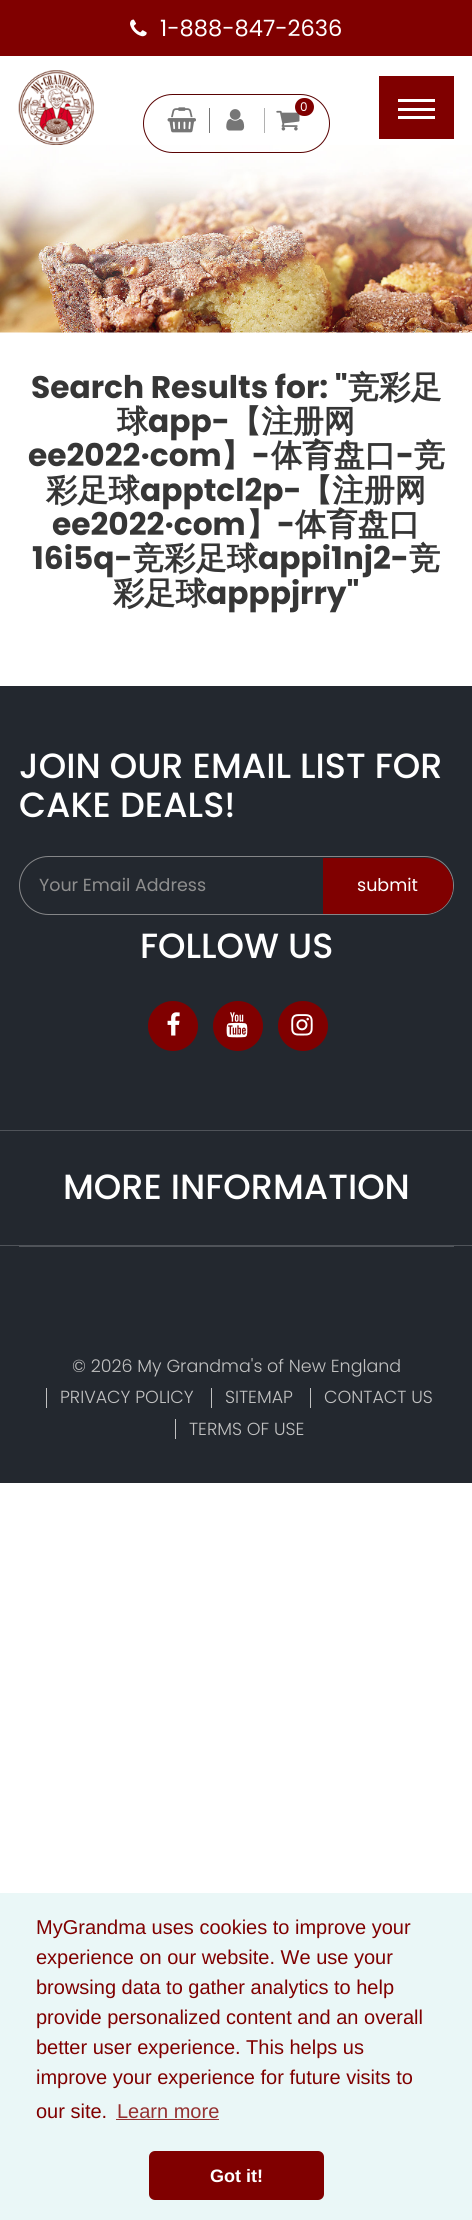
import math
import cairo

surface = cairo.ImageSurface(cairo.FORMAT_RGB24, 472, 2220)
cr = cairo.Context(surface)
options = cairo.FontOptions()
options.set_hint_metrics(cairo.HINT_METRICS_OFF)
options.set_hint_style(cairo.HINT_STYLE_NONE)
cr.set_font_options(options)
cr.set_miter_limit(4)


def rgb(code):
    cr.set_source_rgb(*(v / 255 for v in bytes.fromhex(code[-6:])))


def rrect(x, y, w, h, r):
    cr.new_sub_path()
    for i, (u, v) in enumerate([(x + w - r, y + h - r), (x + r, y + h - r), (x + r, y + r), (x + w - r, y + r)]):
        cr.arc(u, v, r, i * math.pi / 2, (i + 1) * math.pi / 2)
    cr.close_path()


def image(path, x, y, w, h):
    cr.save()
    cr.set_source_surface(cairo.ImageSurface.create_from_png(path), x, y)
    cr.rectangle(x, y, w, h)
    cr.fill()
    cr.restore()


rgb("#ffffff")
cr.paint()
rgb("#800000")
cr.rectangle(0, 0, 472, 56)
cr.fill()
image("img/1.png", 130, 19, 17, 18)
image("img/6.png", 0, 145, 472, 188)
rrect(143.5, 94.5, 186, 58, 29)
rgb("#590202")
cr.set_line_width(1)
cr.stroke()
image("img/2.png", 276, 110, 24, 21)
rgb("#800000")
rrect(295, 98, 19, 18, 9)
cr.fill()
rgb("#767676")
cr.rectangle(209, 108, 1, 25)
cr.fill()
image("img/3.png", 167, 107, 29, 26)
rgb("#b1b1b1")
cr.rectangle(264, 108, 1, 25)
cr.fill()
image("img/4.png", 226, 109, 19, 22)
image("img/5.png", 18, 70, 76, 75)
for x, y, w, h, color in [
    (379, 76, 75, 63, "#800000"),
    (398, 108, 37, 3, "#ffffff"),
    (398, 99, 37, 3, "#ffffff"),
    (398, 116, 37, 3, "#ffffff"),
    (0, 686, 472, 797, "#23282f"),
]:
    rgb(color)
    cr.rectangle(x, y, w, h)
    cr.fill()
rrect(19.5, 856.5, 434, 58, 29)
rgb("#858688")
cr.stroke()
rgb("#800000")
cr.new_path()
cr.move_to(323, 858)
cr.line_to(425, 858)
cr.curve_to(440.5, 858, 453, 870.5, 453, 886)
cr.curve_to(453, 901.5, 440.5, 914, 425, 914)
cr.line_to(323, 914)
cr.close_path()
cr.fill()
cr.arc(173, 1026, 25, 0, 2 * math.pi)
cr.fill()
image("img/7.png", 167, 1012, 13, 24)
cr.arc(238, 1026, 25, 0, 2 * math.pi)
cr.fill()
image("img/8.png", 226, 1012, 22, 26)
cr.arc(303, 1026, 25, 0, 2 * math.pi)
cr.fill()
image("img/9.png", 291, 1014, 22, 22)
for x, y, w, h, color in [
    (0, 1130, 472, 1, "#4f5359"),
    (0, 1245, 472, 1, "#4f5359"),
    (19, 1246, 435, 1, "#4f5359"),
    (46, 1388, 1, 20, "#c1c1c1"),
    (211, 1388, 1, 20, "#c1c1c1"),
    (310, 1388, 1, 20, "#c1c1c1"),
    (175, 1419, 1, 20, "#c1c1c1"),
    (0, 1893, 472, 327, "#eaf7f7"),
    (116, 2119, 103, 1, "#953131"),
]:
    rgb(color)
    cr.rectangle(x, y, w, h)
    cr.fill()
rgb("#800000")
rrect(149, 2151, 175, 49, 6)
cr.fill()
cr.select_font_face("Poppins")
cr.set_font_size(22.5)
rgb("#ffffff")
cr.move_to(160, 36)
cr.show_text("1-888-847-2636")
cr.set_font_size(12)
cr.move_to(300, 111)
cr.show_text("0")
cr.select_font_face("Poppins", cairo.FONT_SLANT_NORMAL, cairo.FONT_WEIGHT_BOLD)
cr.set_font_size(31.25)
rgb("#363636")
cr.move_to(31, 398)
cr.show_text("Search Results for: \"")
cr.select_font_face("WenQuanYi Zen Hei", cairo.FONT_SLANT_NORMAL, cairo.FONT_WEIGHT_BOLD)
cr.move_to(348, 398)
cr.show_text("竞彩足")
cr.move_to(117, 432)
cr.show_text("球")
cr.select_font_face("Poppins", cairo.FONT_SLANT_NORMAL, cairo.FONT_WEIGHT_BOLD)
cr.move_to(148, 432)
cr.show_text("app-")
cr.select_font_face("WenQuanYi Zen Hei", cairo.FONT_SLANT_NORMAL, cairo.FONT_WEIGHT_BOLD)
cr.move_to(230, 432)
cr.show_text("【注册网")
cr.select_font_face("Poppins", cairo.FONT_SLANT_NORMAL, cairo.FONT_WEIGHT_BOLD)
cr.move_to(28, 466)
cr.show_text("ee2022·com")
cr.select_font_face("WenQuanYi Zen Hei", cairo.FONT_SLANT_NORMAL, cairo.FONT_WEIGHT_BOLD)
cr.move_to(221, 466)
cr.show_text("】")
cr.select_font_face("Poppins", cairo.FONT_SLANT_NORMAL, cairo.FONT_WEIGHT_BOLD)
cr.move_to(252, 466)
cr.show_text("-")
cr.select_font_face("WenQuanYi Zen Hei", cairo.FONT_SLANT_NORMAL, cairo.FONT_WEIGHT_BOLD)
cr.move_to(271, 466)
cr.show_text("体育盘口")
cr.select_font_face("Poppins", cairo.FONT_SLANT_NORMAL, cairo.FONT_WEIGHT_BOLD)
cr.move_to(396, 466)
cr.show_text("-")
cr.select_font_face("WenQuanYi Zen Hei", cairo.FONT_SLANT_NORMAL, cairo.FONT_WEIGHT_BOLD)
cr.move_to(414, 466)
cr.show_text("竞")
cr.move_to(46, 501)
cr.show_text("彩足球")
cr.select_font_face("Poppins", cairo.FONT_SLANT_NORMAL, cairo.FONT_WEIGHT_BOLD)
cr.move_to(140, 501)
cr.show_text("apptcl2p-")
cr.select_font_face("WenQuanYi Zen Hei", cairo.FONT_SLANT_NORMAL, cairo.FONT_WEIGHT_BOLD)
cr.move_to(301, 501)
cr.show_text("【注册网")
cr.select_font_face("Poppins", cairo.FONT_SLANT_NORMAL, cairo.FONT_WEIGHT_BOLD)
cr.move_to(52, 535)
cr.show_text("ee2022·com")
cr.select_font_face("WenQuanYi Zen Hei", cairo.FONT_SLANT_NORMAL, cairo.FONT_WEIGHT_BOLD)
cr.move_to(246, 535)
cr.show_text("】")
cr.select_font_face("Poppins", cairo.FONT_SLANT_NORMAL, cairo.FONT_WEIGHT_BOLD)
cr.move_to(277, 535)
cr.show_text("-")
cr.select_font_face("WenQuanYi Zen Hei", cairo.FONT_SLANT_NORMAL, cairo.FONT_WEIGHT_BOLD)
cr.move_to(295, 535)
cr.show_text("体育盘口")
cr.select_font_face("Poppins", cairo.FONT_SLANT_NORMAL, cairo.FONT_WEIGHT_BOLD)
cr.move_to(32, 569)
cr.show_text("16i5q-")
cr.select_font_face("WenQuanYi Zen Hei", cairo.FONT_SLANT_NORMAL, cairo.FONT_WEIGHT_BOLD)
cr.move_to(133, 569)
cr.show_text("竞彩足球")
cr.select_font_face("Poppins", cairo.FONT_SLANT_NORMAL, cairo.FONT_WEIGHT_BOLD)
cr.move_to(258, 569)
cr.show_text("appi1nj2-")
cr.select_font_face("WenQuanYi Zen Hei", cairo.FONT_SLANT_NORMAL, cairo.FONT_WEIGHT_BOLD)
cr.move_to(409, 569)
cr.show_text("竞")
cr.move_to(113, 604)
cr.show_text("彩足球")
cr.select_font_face("Poppins", cairo.FONT_SLANT_NORMAL, cairo.FONT_WEIGHT_BOLD)
cr.move_to(206, 604)
cr.show_text("apppjrry\"")
cr.select_font_face("Poppins Medium")
cr.set_font_size(35)
rgb("#ffffff")
cr.move_to(19, 778)
cr.show_text("JOIN OUR EMAIL LIST FOR")
cr.move_to(19, 817)
cr.show_text("CAKE DEALS!")
cr.select_font_face("Poppins")
cr.set_font_size(17.5)
rgb("#8e8e8e")
cr.move_to(39, 891)
cr.show_text("Your Email Address")
rgb("#ffffff")
cr.move_to(357, 891)
cr.show_text("submit")
cr.select_font_face("Poppins Medium")
cr.set_font_size(35)
cr.move_to(140, 958)
cr.show_text("FOLLOW US")
cr.move_to(63, 1199)
cr.show_text("MORE INFORMATION")
cr.select_font_face("Poppins Light")
cr.set_font_size(17.5)
rgb("#c1c1c1")
for x, y, s in [
    (72, 1372, "© 2026 My Grandma's of New England"),
    (60, 1403, "PRIVACY POLICY"),
    (225, 1403, "SITEMAP"),
    (324, 1403, "CONTACT US"),
    (189, 1435, "TERMS OF USE"),
]:
    cr.move_to(x, y)
    cr.show_text(s)
cr.select_font_face("Liberation Sans")
cr.set_font_size(20)
rgb("#800000")
for x, y, s in [
    (36, 1934, "MyGrandma uses cookies to improve your"),
    (36, 1964, "experience on our website. We use your"),
    (36, 1994, "browsing data to gather analytics to help"),
    (36, 2024, "provide personalized content and an overall"),
    (36, 2054, "better user experience. This helps us"),
    (36, 2084, "improve your experience for future visits to"),
    (36, 2118, "our site."),
]:
    cr.move_to(x, y)
    cr.show_text(s)
rgb("#953131")
cr.move_to(117, 2118)
cr.show_text("Learn more")
cr.select_font_face("Liberation Sans", cairo.FONT_SLANT_NORMAL, cairo.FONT_WEIGHT_BOLD)
cr.set_font_size(18)
rgb("#ffffff")
cr.move_to(210, 2182)
cr.show_text("Got it!")
surface.write_to_png("page.png")
